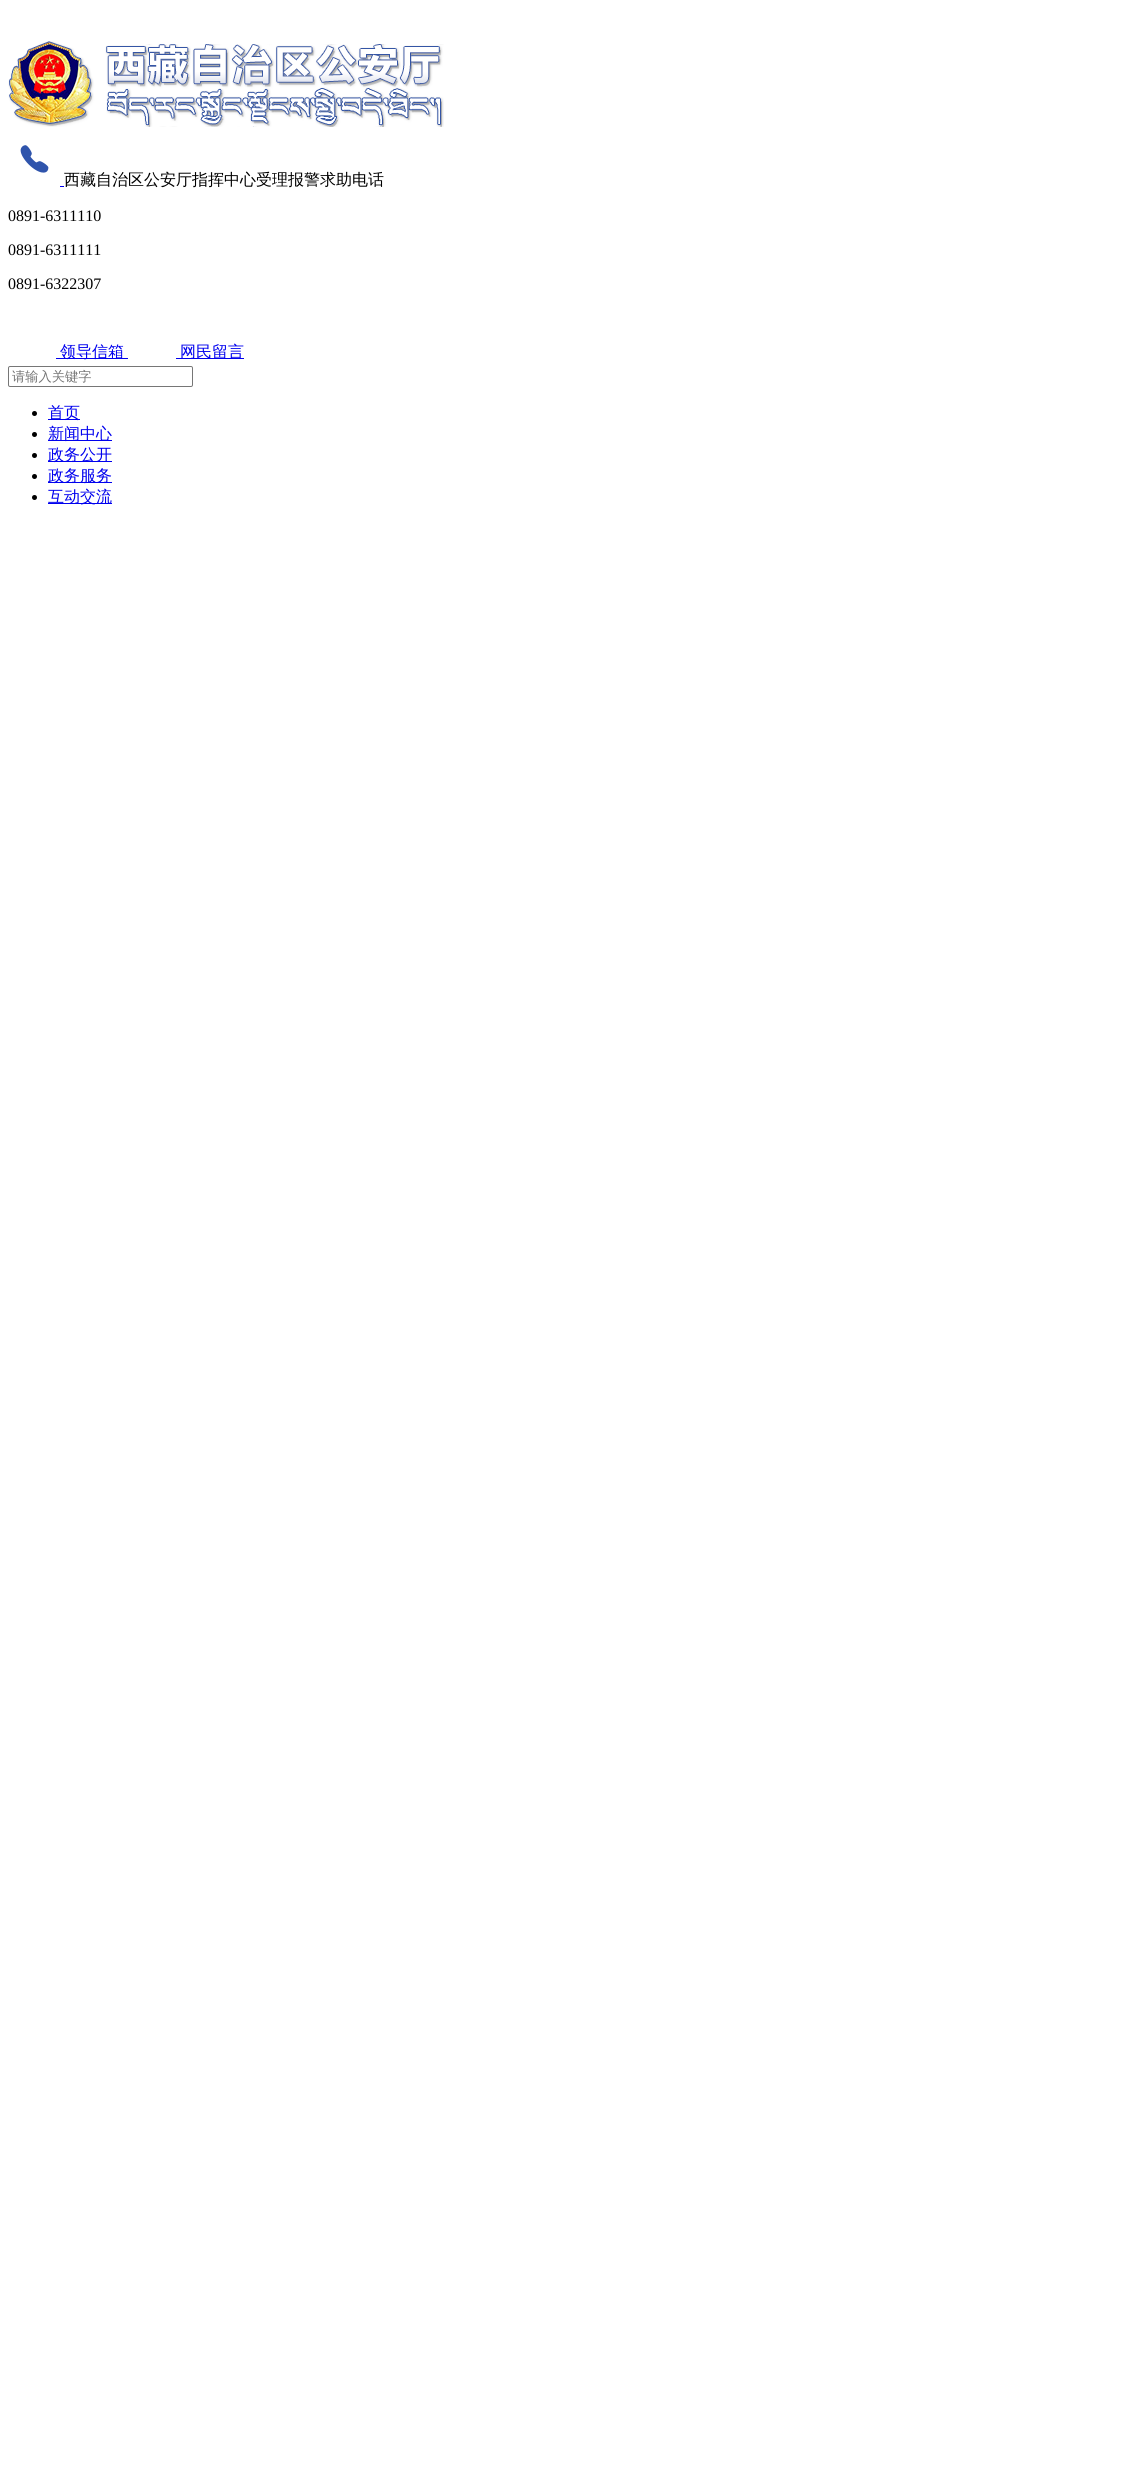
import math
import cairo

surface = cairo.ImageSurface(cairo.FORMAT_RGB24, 1122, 2473)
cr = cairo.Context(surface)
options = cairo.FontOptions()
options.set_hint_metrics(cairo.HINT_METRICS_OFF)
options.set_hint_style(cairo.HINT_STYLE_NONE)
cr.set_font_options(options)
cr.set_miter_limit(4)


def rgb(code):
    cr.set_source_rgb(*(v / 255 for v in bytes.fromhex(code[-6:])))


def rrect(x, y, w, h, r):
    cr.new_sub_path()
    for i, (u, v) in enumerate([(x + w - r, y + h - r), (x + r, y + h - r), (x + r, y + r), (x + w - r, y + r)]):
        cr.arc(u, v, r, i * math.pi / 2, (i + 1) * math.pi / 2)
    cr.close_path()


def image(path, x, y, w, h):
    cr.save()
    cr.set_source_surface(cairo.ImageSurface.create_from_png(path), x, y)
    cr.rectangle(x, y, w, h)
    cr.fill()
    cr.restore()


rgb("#ffffff")
cr.paint()
image("img/1.png", 8, 41, 436, 86)
image("img/2.png", 20, 145, 29, 28)
for x, y, w, h, color in [
    (60, 186, 4, 1, "#0000ee"),
    (56, 358, 72, 1, "#0000ee"),
    (176, 358, 68, 1, "#0000ee"),
]:
    rgb(color)
    cr.rectangle(x, y, w, h)
    cr.fill()
rrect(8.5, 366.5, 184, 20, 1.5)
rgb("#767676")
cr.set_line_width(1)
cr.stroke()
rgb("#000000")
cr.arc(34.5, 413.5, 2.5, 0, 2 * math.pi)
cr.fill()
rgb("#0000ee")
cr.rectangle(48, 419, 32, 1)
cr.fill()
rgb("#000000")
cr.arc(34.5, 434.5, 2.5, 0, 2 * math.pi)
cr.fill()
rgb("#0000ee")
cr.rectangle(48, 440, 64, 1)
cr.fill()
rgb("#000000")
cr.arc(34.5, 455.5, 2.5, 0, 2 * math.pi)
cr.fill()
rgb("#0000ee")
cr.rectangle(48, 461, 64, 1)
cr.fill()
rgb("#000000")
cr.arc(34.5, 476.5, 2.5, 0, 2 * math.pi)
cr.fill()
rgb("#0000ee")
cr.rectangle(48, 482, 64, 1)
cr.fill()
rgb("#000000")
cr.arc(34.5, 497.5, 2.5, 0, 2 * math.pi)
cr.fill()
rgb("#0000ee")
cr.rectangle(48, 503, 64, 1)
cr.fill()
cr.select_font_face("WenQuanYi Zen Hei Medium")
cr.set_font_size(16)
rgb("#000000")
cr.move_to(64, 185)
cr.show_text("西藏自治区公安厅指挥中心受理报警求助电话")
cr.select_font_face("Liberation Serif")
for x, y, s in [
    (8, 221, "0891-6311110"),
    (8, 255, "0891-6311111"),
    (8, 289, "0891-6322307"),
]:
    cr.move_to(x, y)
    cr.show_text(s)
cr.select_font_face("WenQuanYi Zen Hei Medium")
rgb("#0000ee")
cr.move_to(60, 357)
cr.show_text("领导信箱")
cr.move_to(180, 357)
cr.show_text("网民留言")
cr.set_font_size(13.25)
rgb("#757575")
cr.move_to(12, 381)
cr.show_text("请输入关键字")
cr.set_font_size(16)
rgb("#0000ee")
for x, y, s in [
    (48, 418, "首页"),
    (48, 439, "新闻中心"),
    (48, 460, "政务公开"),
    (48, 481, "政务服务"),
    (48, 502, "互动交流"),
]:
    cr.move_to(x, y)
    cr.show_text(s)
surface.write_to_png("page.png")
